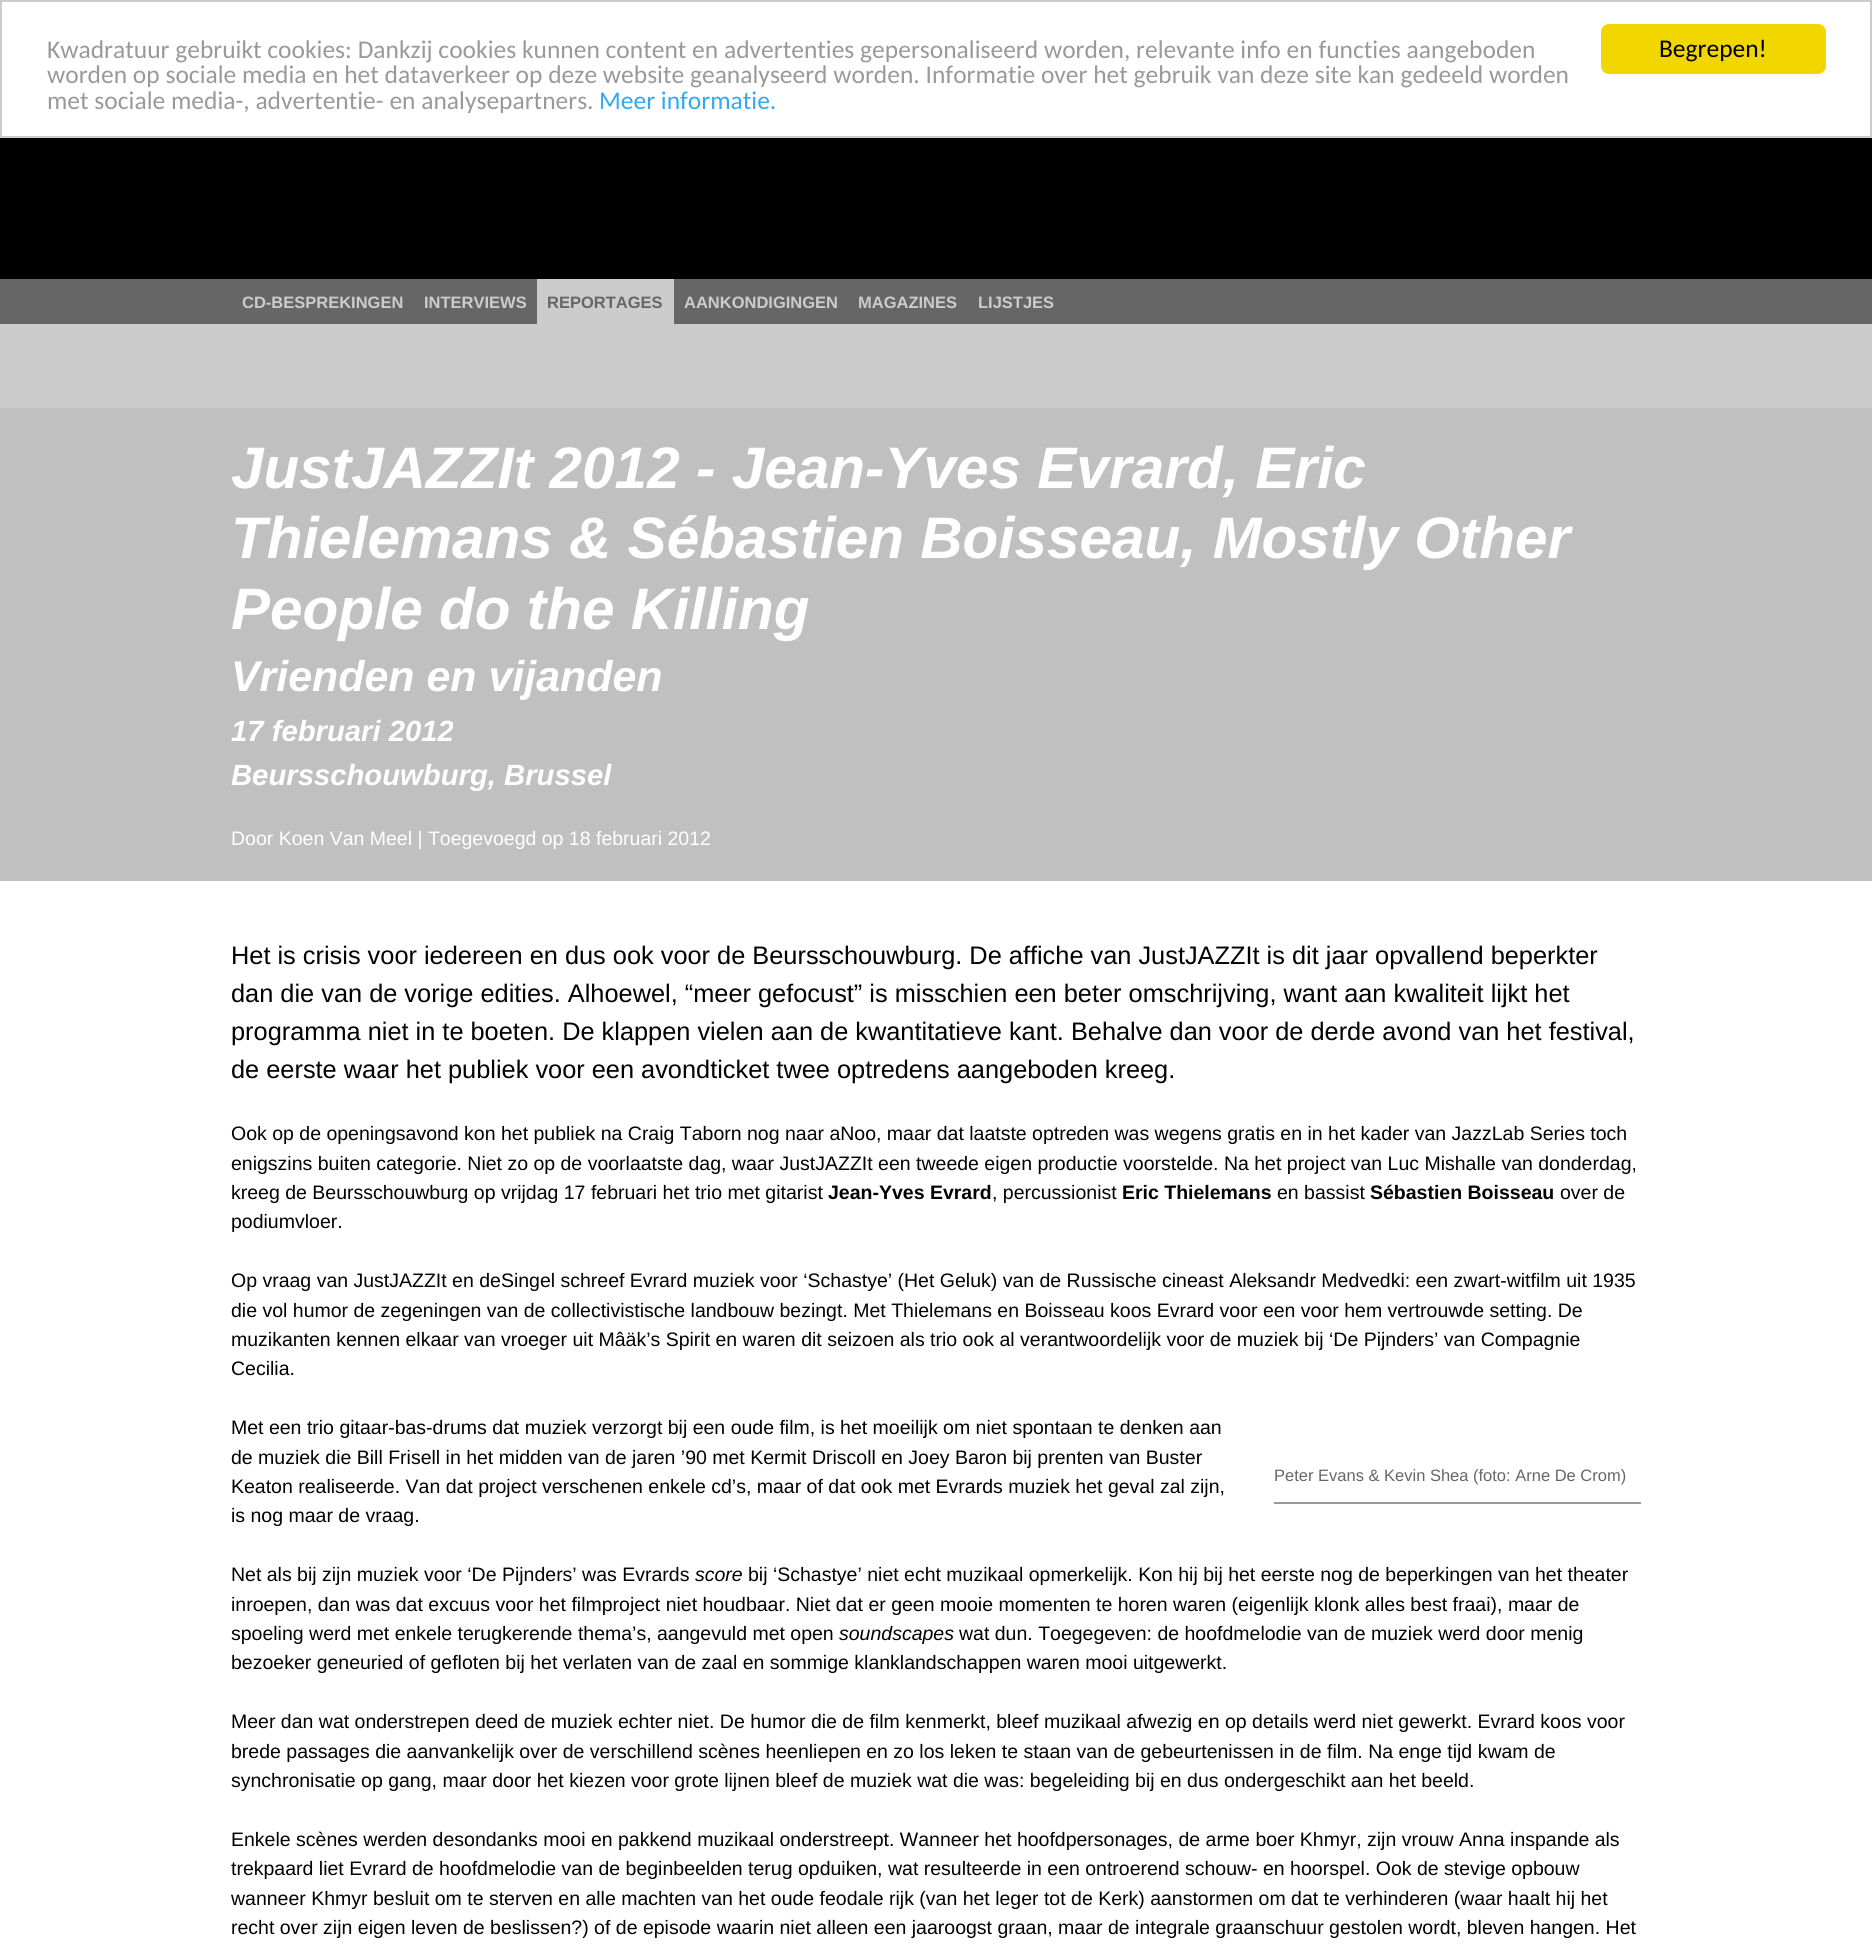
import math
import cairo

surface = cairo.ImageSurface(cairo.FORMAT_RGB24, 1872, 1944)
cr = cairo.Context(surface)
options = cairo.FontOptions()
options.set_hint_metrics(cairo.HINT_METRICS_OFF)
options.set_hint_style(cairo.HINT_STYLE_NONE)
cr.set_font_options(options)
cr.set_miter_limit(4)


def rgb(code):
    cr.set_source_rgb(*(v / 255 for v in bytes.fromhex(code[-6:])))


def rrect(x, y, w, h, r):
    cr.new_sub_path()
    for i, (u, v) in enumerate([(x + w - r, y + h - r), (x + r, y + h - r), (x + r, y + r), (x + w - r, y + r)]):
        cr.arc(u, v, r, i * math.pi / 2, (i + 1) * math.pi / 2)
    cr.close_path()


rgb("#ffffff")
cr.paint()
cr.rectangle(1, 1, 1870, 136)
rgb("#cccccc")
cr.stroke()
rgb("#f1d600")
rrect(1601, 24, 225, 50, 8)
cr.fill()
for x, y, w, h, color in [
    (0, 138, 1872, 141, "#000000"),
    (0, 279, 1872, 45, "#666666"),
    (537, 279, 137, 45, "#cccccc"),
    (0, 324, 1872, 84, "#cccccc"),
    (0, 408, 1872, 473, "#c0c0c0"),
    (1274, 1502, 367, 2, "#999999"),
]:
    rgb(color)
    cr.rectangle(x, y, w, h)
    cr.fill()
cr.select_font_face("Carlito")
cr.set_font_size(25.5)
for x, y, s in [
    (47, 58, "Kwadratuur gebruikt cookies: Dankzij cookies kunnen content en advertenties gepersonaliseerd worden, relevante info en functies aangeboden"),
    (47, 83, "worden op sociale media en het dataverkeer op deze website geanalyseerd worden. Informatie over het gebruik van deze site kan gedeeld worden"),
    (47, 109, "met sociale media-, advertentie- en analysepartners."),
]:
    cr.move_to(x, y)
    cr.show_text(s)
rgb("#31a8f0")
cr.move_to(599, 109)
cr.show_text("Meer informatie.")
rgb("#000000")
cr.move_to(1659, 57)
cr.show_text("Begrepen!")
cr.select_font_face("Liberation Sans", cairo.FONT_SLANT_NORMAL, cairo.FONT_WEIGHT_BOLD)
cr.set_font_size(16.5)
rgb("#cccccc")
cr.move_to(242, 308)
cr.show_text("CD-BESPREKINGEN")
cr.move_to(424, 308)
cr.show_text("INTERVIEWS")
rgb("#666666")
cr.move_to(547, 308)
cr.show_text("REPORTAGES")
rgb("#cccccc")
for x, y, s in [
    (684, 308, "AANKONDIGINGEN"),
    (858, 308, "MAGAZINES"),
    (978, 308, "LIJSTJES"),
]:
    cr.move_to(x, y)
    cr.show_text(s)
cr.select_font_face("Liberation Sans", cairo.FONT_SLANT_ITALIC, cairo.FONT_WEIGHT_BOLD)
cr.set_font_size(58.5)
rgb("#ffffff")
for x, y, s in [
    (231, 488, "JustJAZZIt 2012 - Jean-Yves Evrard, Eric"),
    (231, 558, "Thielemans & Sébastien Boisseau, Mostly Other"),
    (231, 629, "People do the Killing"),
]:
    cr.move_to(x, y)
    cr.show_text(s)
cr.set_font_size(42.9)
cr.move_to(231, 691)
cr.show_text("Vrienden en vijanden")
cr.set_font_size(29.25)
cr.move_to(231, 741)
cr.show_text("17 februari 2012")
cr.move_to(231, 785)
cr.show_text("Beursschouwburg, Brussel")
cr.select_font_face("Liberation Sans")
cr.set_font_size(19.5)
cr.move_to(231, 845)
cr.show_text("Door Koen Van Meel | Toegevoegd op 18 februari 2012")
cr.set_font_size(25.35)
rgb("#000000")
for x, y, s in [
    (231, 964, "Het is crisis voor iedereen en dus ook voor de Beursschouwburg. De affiche van JustJAZZIt is dit jaar opvallend beperkter"),
    (231, 1002, "dan die van de vorige edities. Alhoewel, “meer gefocust” is misschien een beter omschrijving, want aan kwaliteit lijkt het"),
    (231, 1040, "programma niet in te boeten. De klappen vielen aan de kwantitatieve kant. Behalve dan voor de derde avond van het festival,"),
    (231, 1078, "de eerste waar het publiek voor een avondticket twee optredens aangeboden kreeg."),
]:
    cr.move_to(x, y)
    cr.show_text(s)
cr.set_font_size(19.5)
for x, y, s in [
    (231, 1140, "Ook op de openingsavond kon het publiek na Craig Taborn nog naar aNoo, maar dat laatste optreden was wegens gratis en in het kader van JazzLab Series toch"),
    (231, 1170, "enigszins buiten categorie. Niet zo op de voorlaatste dag, waar JustJAZZIt een tweede eigen productie voorstelde. Na het project van Luc Mishalle van donderdag,"),
    (231, 1199, "kreeg de Beursschouwburg op vrijdag 17 februari het trio met gitarist"),
]:
    cr.move_to(x, y)
    cr.show_text(s)
cr.select_font_face("Liberation Sans", cairo.FONT_SLANT_NORMAL, cairo.FONT_WEIGHT_BOLD)
cr.move_to(828, 1199)
cr.show_text("Jean-Yves Evrard")
cr.select_font_face("Liberation Sans")
cr.move_to(992, 1199)
cr.show_text(", percussionist")
cr.select_font_face("Liberation Sans", cairo.FONT_SLANT_NORMAL, cairo.FONT_WEIGHT_BOLD)
cr.move_to(1122, 1199)
cr.show_text("Eric Thielemans")
cr.select_font_face("Liberation Sans")
cr.move_to(1277, 1199)
cr.show_text("en bassist")
cr.select_font_face("Liberation Sans", cairo.FONT_SLANT_NORMAL, cairo.FONT_WEIGHT_BOLD)
cr.move_to(1370, 1199)
cr.show_text("Sébastien Boisseau")
cr.select_font_face("Liberation Sans")
for x, y, s in [
    (1560, 1199, "over de"),
    (231, 1228, "podiumvloer."),
    (231, 1287, "Op vraag van JustJAZZIt en deSingel schreef Evrard muziek voor ‘Schastye’ (Het Geluk) van de Russische cineast Aleksandr Medvedki: een zwart-witfilm uit 1935"),
    (231, 1317, "die vol humor de zegeningen van de collectivistische landbouw bezingt. Met Thielemans en Boisseau koos Evrard voor een voor hem vertrouwde setting. De"),
    (231, 1346, "muzikanten kennen elkaar van vroeger uit Mâäk’s Spirit en waren dit seizoen als trio ook al verantwoordelijk voor de muziek bij ‘De Pijnders’ van Compagnie"),
    (231, 1375, "Cecilia."),
    (231, 1434, "Met een trio gitaar-bas-drums dat muziek verzorgt bij een oude film, is het moeilijk om niet spontaan te denken aan"),
    (231, 1464, "de muziek die Bill Frisell in het midden van de jaren ’90 met Kermit Driscoll en Joey Baron bij prenten van Buster"),
    (231, 1493, "Keaton realiseerde. Van dat project verschenen enkele cd’s, maar of dat ook met Evrards muziek het geval zal zijn,"),
]:
    cr.move_to(x, y)
    cr.show_text(s)
cr.set_font_size(16.5)
rgb("#666666")
cr.move_to(1274, 1481)
cr.show_text("Peter Evans & Kevin Shea (foto: Arne De Crom)")
cr.set_font_size(19.5)
rgb("#000000")
cr.move_to(231, 1522)
cr.show_text("is nog maar de vraag.")
cr.move_to(231, 1581)
cr.show_text("Net als bij zijn muziek voor ‘De Pijnders’ was Evrards")
cr.select_font_face("Liberation Sans", cairo.FONT_SLANT_ITALIC)
cr.move_to(695, 1581)
cr.show_text("score")
cr.select_font_face("Liberation Sans")
for x, y, s in [
    (748, 1581, "bij ‘Schastye’ niet echt muzikaal opmerkelijk. Kon hij bij het eerste nog de beperkingen van het theater"),
    (231, 1611, "inroepen, dan was dat excuus voor het filmproject niet houdbaar. Niet dat er geen mooie momenten te horen waren (eigenlijk klonk alles best fraai), maar de"),
    (231, 1640, "spoeling werd met enkele terugkerende thema’s, aangevuld met open"),
]:
    cr.move_to(x, y)
    cr.show_text(s)
cr.select_font_face("Liberation Sans", cairo.FONT_SLANT_ITALIC)
cr.move_to(839, 1640)
cr.show_text("soundscapes")
cr.select_font_face("Liberation Sans")
for x, y, s in [
    (959, 1640, "wat dun. Toegegeven: de hoofdmelodie van de muziek werd door menig"),
    (231, 1669, "bezoeker geneuried of gefloten bij het verlaten van de zaal en sommige klanklandschappen waren mooi uitgewerkt."),
    (231, 1728, "Meer dan wat onderstrepen deed de muziek echter niet. De humor die de film kenmerkt, bleef muzikaal afwezig en op details werd niet gewerkt. Evrard koos voor"),
    (231, 1758, "brede passages die aanvankelijk over de verschillend scènes heenliepen en zo los leken te staan van de gebeurtenissen in de film. Na enge tijd kwam de"),
    (231, 1787, "synchronisatie op gang, maar door het kiezen voor grote lijnen bleef de muziek wat die was: begeleiding bij en dus ondergeschikt aan het beeld."),
    (231, 1846, "Enkele scènes werden desondanks mooi en pakkend muzikaal onderstreept. Wanneer het hoofdpersonages, de arme boer Khmyr, zijn vrouw Anna inspande als"),
    (231, 1875, "trekpaard liet Evrard de hoofdmelodie van de beginbeelden terug opduiken, wat resulteerde in een ontroerend schouw- en hoorspel. Ook de stevige opbouw"),
    (231, 1905, "wanneer Khmyr besluit om te sterven en alle machten van het oude feodale rijk (van het leger tot de Kerk) aanstormen om dat te verhinderen (waar haalt hij het"),
    (231, 1934, "recht over zijn eigen leven de beslissen?) of de episode waarin niet alleen een jaaroogst graan, maar de integrale graanschuur gestolen wordt, bleven hangen. Het"),
]:
    cr.move_to(x, y)
    cr.show_text(s)
surface.write_to_png("page.png")
